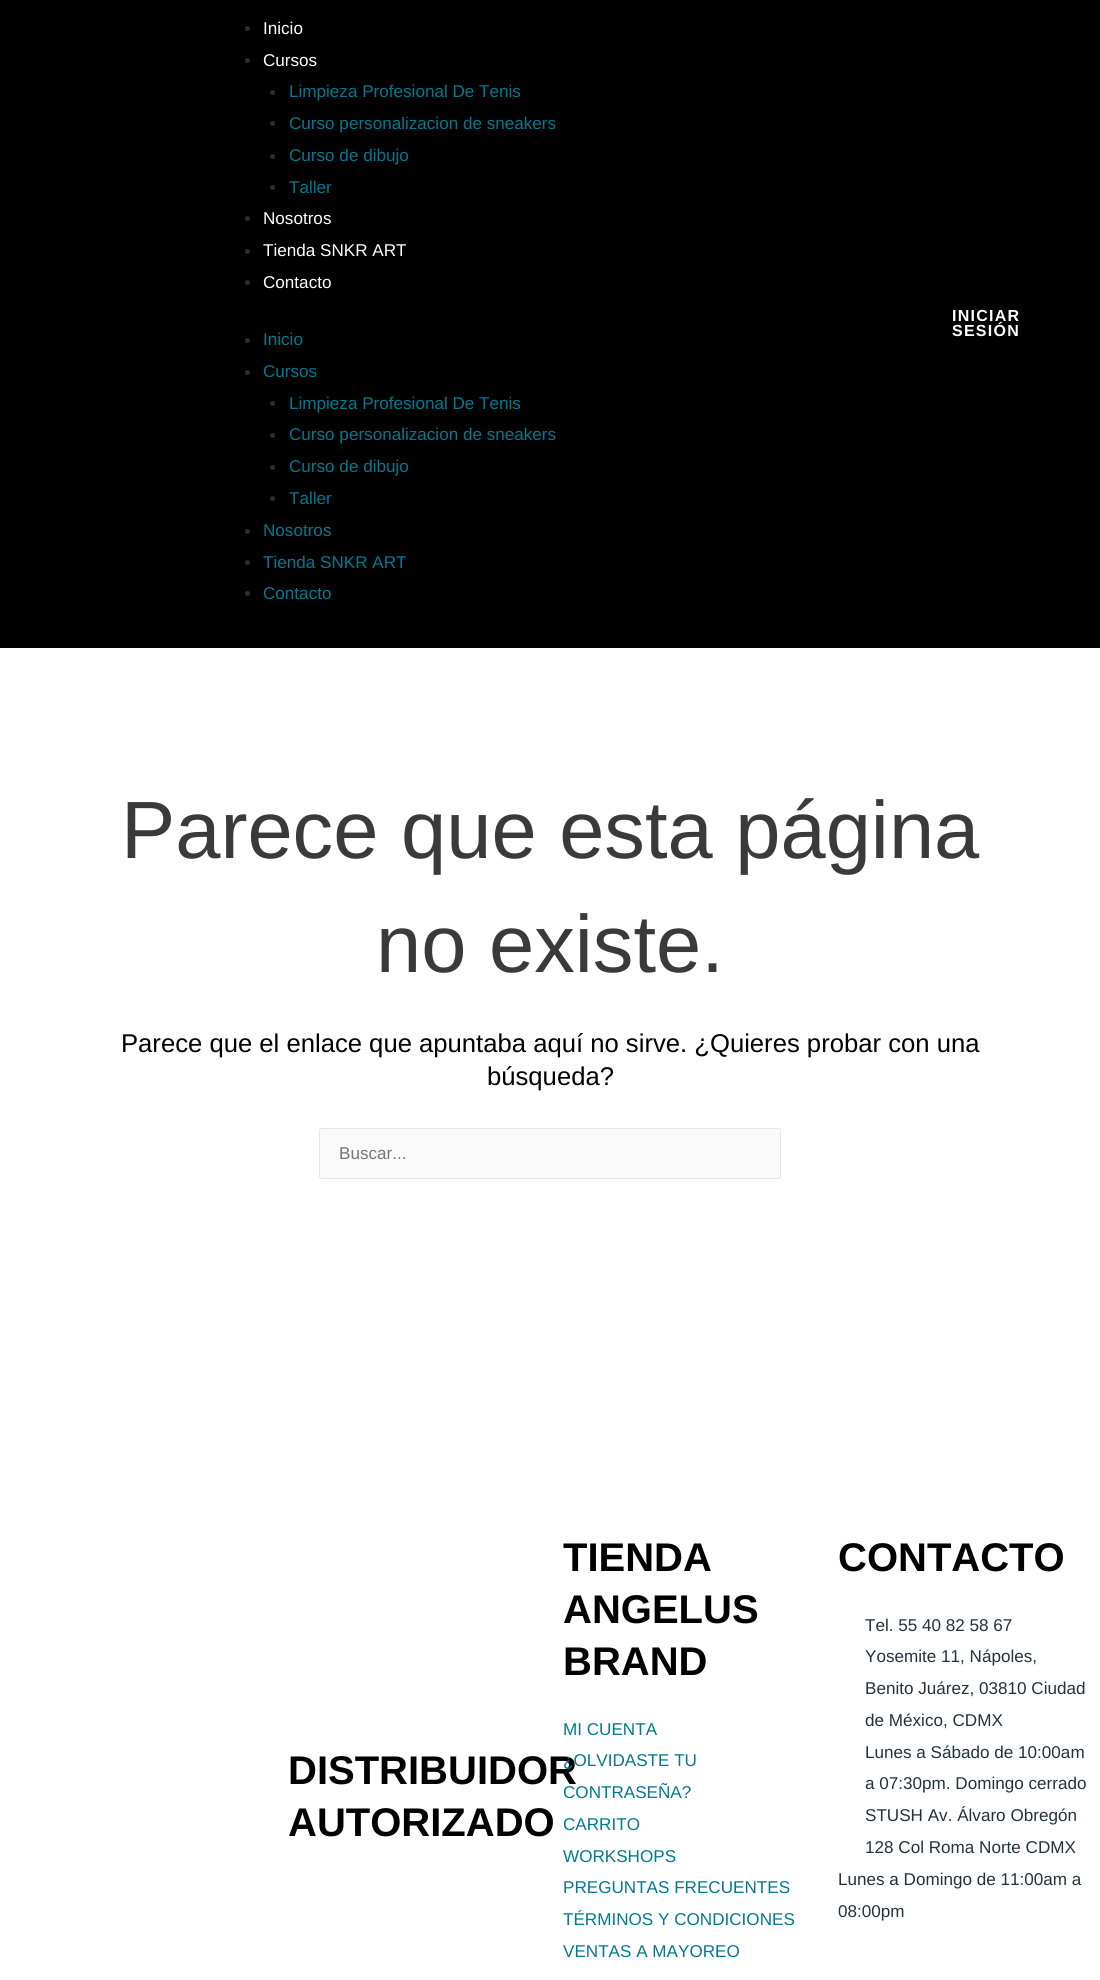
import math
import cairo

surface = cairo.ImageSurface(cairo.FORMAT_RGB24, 1100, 1980)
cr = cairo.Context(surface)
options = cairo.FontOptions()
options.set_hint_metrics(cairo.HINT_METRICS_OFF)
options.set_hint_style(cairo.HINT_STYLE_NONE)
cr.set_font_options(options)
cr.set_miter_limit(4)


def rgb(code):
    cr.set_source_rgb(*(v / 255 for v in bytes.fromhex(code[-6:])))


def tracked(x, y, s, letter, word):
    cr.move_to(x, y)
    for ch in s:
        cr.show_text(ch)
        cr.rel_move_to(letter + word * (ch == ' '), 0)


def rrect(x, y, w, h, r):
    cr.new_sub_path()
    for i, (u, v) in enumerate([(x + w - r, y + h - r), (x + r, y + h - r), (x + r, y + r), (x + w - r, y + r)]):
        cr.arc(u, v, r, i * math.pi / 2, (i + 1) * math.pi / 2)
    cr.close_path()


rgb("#ffffff")
cr.paint()
rgb("#000000")
cr.rectangle(0, 0, 1100, 648)
cr.fill()
rgb("#22323d")
cr.arc(247.5, 28.5, 2.5, 0, 2 * math.pi)
cr.fill()
cr.arc(247.5, 60.5, 2.5, 0, 2 * math.pi)
cr.fill()
cr.arc(272.5, 92.5, 2.5, 0, 2 * math.pi)
cr.fill()
cr.arc(272.5, 123.5, 2.5, 0, 2 * math.pi)
cr.fill()
cr.arc(272.5, 156.5, 2.5, 0, 2 * math.pi)
cr.fill()
cr.arc(272.5, 187.5, 2.5, 0, 2 * math.pi)
cr.fill()
cr.arc(247.5, 218.5, 2.5, 0, 2 * math.pi)
cr.fill()
cr.arc(247.5, 251.5, 2.5, 0, 2 * math.pi)
cr.fill()
cr.arc(247.5, 282.5, 2.5, 0, 2 * math.pi)
cr.fill()
cr.arc(247.5, 340.5, 2.5, 0, 2 * math.pi)
cr.fill()
cr.arc(247.5, 372.5, 2.5, 0, 2 * math.pi)
cr.fill()
cr.arc(272.5, 403.5, 2.5, 0, 2 * math.pi)
cr.fill()
cr.arc(272.5, 435.5, 2.5, 0, 2 * math.pi)
cr.fill()
cr.arc(272.5, 467.5, 2.5, 0, 2 * math.pi)
cr.fill()
cr.arc(272.5, 498.5, 2.5, 0, 2 * math.pi)
cr.fill()
cr.arc(247.5, 531.5, 2.5, 0, 2 * math.pi)
cr.fill()
cr.arc(247.5, 562.5, 2.5, 0, 2 * math.pi)
cr.fill()
cr.arc(247.5, 593.5, 2.5, 0, 2 * math.pi)
cr.fill()
rgb("#fafafa")
rrect(319.5, 1128.5, 461, 50, 2)
cr.fill_preserve()
rgb("#e5e5e5")
cr.set_line_width(1)
cr.stroke()
cr.select_font_face("Liberation Sans")
cr.set_font_size(17.1)
rgb("#ffffff")
cr.move_to(263, 34)
cr.show_text("Inicio")
cr.move_to(263, 66)
cr.show_text("Cursos")
rgb("#007991")
for x, y, s in [
    (289, 97, "Limpieza Profesional De Tenis"),
    (289, 129, "Curso personalizacion de sneakers"),
    (289, 161, "Curso de dibujo"),
    (289, 193, "Taller"),
]:
    cr.move_to(x, y)
    cr.show_text(s)
rgb("#ffffff")
for x, y, s in [
    (263, 224, "Nosotros"),
    (263, 256, "Tienda SNKR ART"),
    (263, 288, "Contacto"),
]:
    cr.move_to(x, y)
    cr.show_text(s)
rgb("#007991")
for x, y, s in [
    (263, 345, "Inicio"),
    (263, 377, "Cursos"),
    (289, 409, "Limpieza Profesional De Tenis"),
    (289, 440, "Curso personalizacion de sneakers"),
    (289, 472, "Curso de dibujo"),
    (289, 504, "Taller"),
    (263, 536, "Nosotros"),
    (263, 568, "Tienda SNKR ART"),
    (263, 599, "Contacto"),
]:
    cr.move_to(x, y)
    cr.show_text(s)
cr.select_font_face("Liberation Sans", cairo.FONT_SLANT_NORMAL, cairo.FONT_WEIGHT_BOLD)
cr.set_font_size(16)
rgb("#ffffff")
tracked(952, 321, "INICIAR", 1.25, 0)
tracked(952, 336, "SESIÓN", 1.25, 0)
cr.select_font_face("Liberation Sans")
cr.set_font_size(81.25)
rgb("#3a3a3a")
cr.move_to(121, 858)
cr.show_text("Parece que esta página")
cr.move_to(376, 972)
cr.show_text("no existe.")
cr.set_font_size(25.65)
rgb("#000000")
cr.move_to(121, 1052)
cr.show_text("Parece que el enlace que apuntaba aquí no sirve. ¿Quieres probar con una")
cr.move_to(487, 1085)
cr.show_text("búsqueda?")
cr.set_font_size(17.1)
rgb("#757575")
cr.move_to(339, 1159)
cr.show_text("Buscar...")
cr.select_font_face("Liberation Sans", cairo.FONT_SLANT_NORMAL, cairo.FONT_WEIGHT_BOLD)
cr.set_font_size(40)
rgb("#000000")
for x, y, s in [
    (288, 1784, "DISTRIBUIDOR"),
    (288, 1836, "AUTORIZADO"),
    (563, 1571, "TIENDA"),
    (563, 1623, "ANGELUS"),
    (563, 1675, "BRAND"),
]:
    cr.move_to(x, y)
    cr.show_text(s)
cr.select_font_face("Liberation Sans")
cr.set_font_size(17.1)
rgb("#007991")
for x, y, s in [
    (563, 1735, "MI CUENTA"),
    (563, 1766, "¿OLVIDASTE TU"),
    (563, 1798, "CONTRASEÑA?"),
    (563, 1830, "CARRITO"),
    (563, 1862, "WORKSHOPS"),
    (563, 1893, "PREGUNTAS FRECUENTES"),
    (563, 1925, "TÉRMINOS Y CONDICIONES"),
    (563, 1957, "VENTAS A MAYOREO"),
]:
    cr.move_to(x, y)
    cr.show_text(s)
cr.select_font_face("Liberation Sans", cairo.FONT_SLANT_NORMAL, cairo.FONT_WEIGHT_BOLD)
cr.set_font_size(40)
rgb("#000000")
cr.move_to(838, 1571)
cr.show_text("CONTACTO")
cr.select_font_face("Liberation Sans")
cr.set_font_size(17.1)
rgb("#22323d")
for x, y, s in [
    (865, 1631, "Tel. 55 40 82 58 67"),
    (865, 1662, "Yosemite 11, Nápoles,"),
    (865, 1694, "Benito Juárez, 03810 Ciudad"),
    (865, 1726, "de México, CDMX"),
    (865, 1758, "Lunes a Sábado de 10:00am"),
    (865, 1789, "a 07:30pm. Domingo cerrado"),
    (865, 1821, "STUSH Av. Álvaro Obregón"),
    (865, 1853, "128 Col Roma Norte CDMX"),
    (838, 1885, "Lunes a Domingo de 11:00am a"),
    (838, 1917, "08:00pm"),
]:
    cr.move_to(x, y)
    cr.show_text(s)
surface.write_to_png("page.png")
